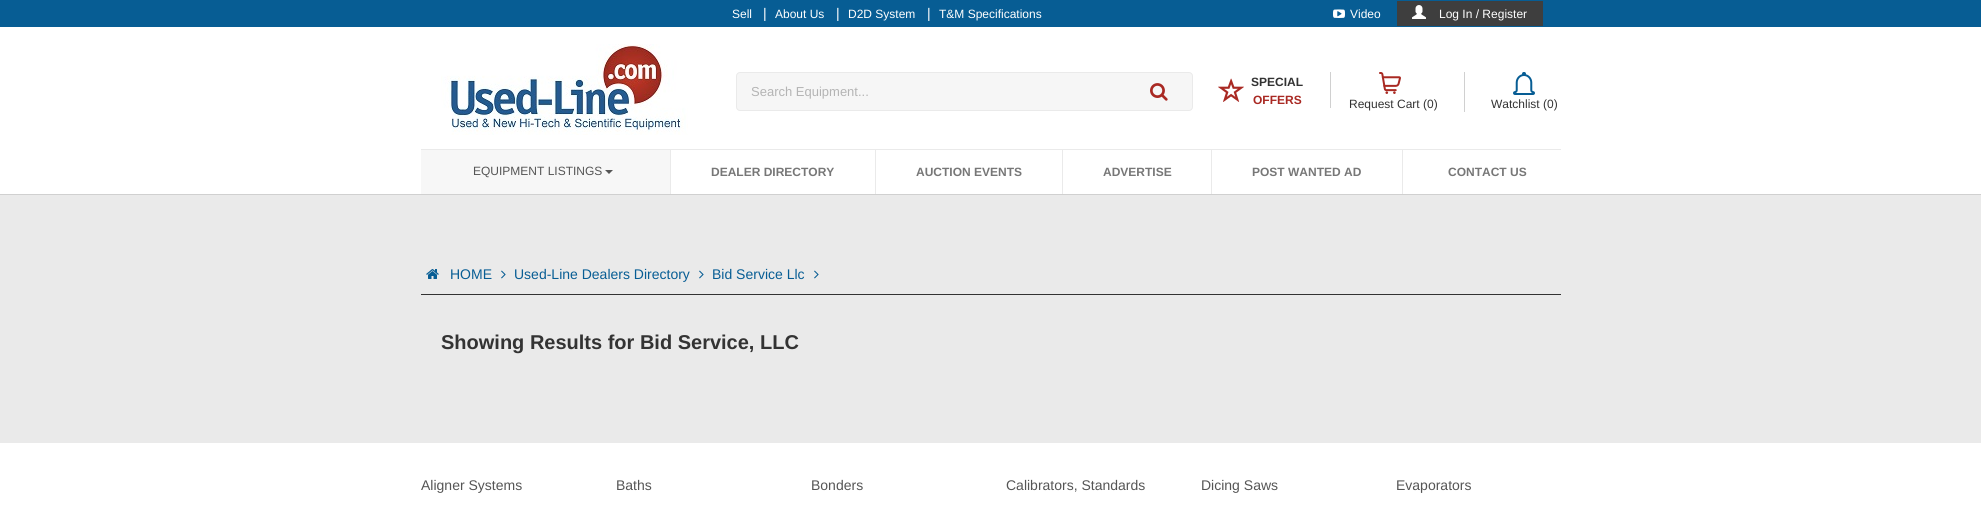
import math
import cairo

surface = cairo.ImageSurface(cairo.FORMAT_RGB24, 1981, 509)
cr = cairo.Context(surface)
options = cairo.FontOptions()
options.set_hint_metrics(cairo.HINT_METRICS_OFF)
options.set_hint_style(cairo.HINT_STYLE_NONE)
cr.set_font_options(options)
cr.set_miter_limit(4)


def rgb(code):
    cr.set_source_rgb(*(v / 255 for v in bytes.fromhex(code[-6:])))


def rrect(x, y, w, h, r):
    cr.new_sub_path()
    for i, (u, v) in enumerate([(x + w - r, y + h - r), (x + r, y + h - r), (x + r, y + r), (x + w - r, y + r)]):
        cr.arc(u, v, r, i * math.pi / 2, (i + 1) * math.pi / 2)
    cr.close_path()


def image(path, x, y, w, h):
    cr.save()
    cr.set_source_surface(cairo.ImageSurface.create_from_png(path), x, y)
    cr.rectangle(x, y, w, h)
    cr.fill()
    cr.restore()


rgb("#eaeaea")
cr.paint()
for x, y, w, h, color in [
    (0, 27, 1981, 167, "#ffffff"),
    (0, 194, 1981, 1, "#d0d0d0"),
    (0, 0, 1981, 27, "#075d94"),
]:
    rgb(color)
    cr.rectangle(x, y, w, h)
    cr.fill()
image("img/1.png", 1333, 9, 12, 9)
rgb("#3e3e3e")
cr.rectangle(1397, 1, 146, 25)
cr.fill()
image("img/2.png", 1412, 5, 14, 14)
image("img/3.png", 441, 44, 247, 91)
rgb("#f6f6f6")
rrect(736.5, 72.5, 456, 38, 3.5)
cr.fill_preserve()
rgb("#eaeaea")
cr.set_line_width(1)
cr.stroke()
image("img/4.png", 1150, 83, 18, 18)
image("img/5.png", 1218, 78, 26, 24)
rgb("#d0d0d0")
cr.rectangle(1330, 72, 1, 36)
cr.fill()
cr.rectangle(1464, 72, 1, 40)
cr.fill()
image("img/6.png", 1379, 72, 22, 22)
image("img/7.png", 1513, 72, 22, 23)
for x, y, w, h, color in [
    (421, 149, 1140, 1, "#eaeaea"),
    (421, 150, 249, 44, "#f7f7f7"),
    (670, 150, 1, 44, "#eaeaea"),
]:
    rgb(color)
    cr.rectangle(x, y, w, h)
    cr.fill()
rgb("#555555")
cr.new_path()
cr.move_to(605, 170)
cr.line_to(613, 170)
cr.line_to(609, 174)
cr.close_path()
cr.fill()
for x, y, w, h, color in [
    (875, 150, 1, 44, "#eaeaea"),
    (1062, 150, 1, 44, "#eaeaea"),
    (1211, 150, 1, 44, "#eaeaea"),
    (1402, 150, 1, 44, "#eaeaea"),
    (421, 294, 1140, 1, "#333333"),
]:
    rgb(color)
    cr.rectangle(x, y, w, h)
    cr.fill()
image("img/8.png", 426, 269, 13, 10)
image("img/9.png", 501, 270, 5, 9)
image("img/9.png", 699, 270, 5, 9)
image("img/9.png", 814, 270, 5, 9)
rgb("#ffffff")
cr.rectangle(0, 443, 1981, 66)
cr.fill()
cr.select_font_face("Liberation Sans")
cr.set_font_size(12)
cr.move_to(732, 18)
cr.show_text("Sell")
cr.set_font_size(14)
cr.move_to(763, 18)
cr.show_text("|")
cr.set_font_size(12)
cr.move_to(775, 18)
cr.show_text("About Us")
cr.set_font_size(14)
cr.move_to(836, 18)
cr.show_text("|")
cr.set_font_size(12)
cr.move_to(848, 18)
cr.show_text("D2D System")
cr.set_font_size(14)
cr.move_to(927, 18)
cr.show_text("|")
cr.set_font_size(12)
for x, y, s in [
    (939, 18, "T&M Specifications"),
    (1350, 18, "Video"),
    (1439, 18, "Log In / Register"),
]:
    cr.move_to(x, y)
    cr.show_text(s)
cr.set_font_size(13)
rgb("#b4b4b4")
cr.move_to(751, 96)
cr.show_text("Search Equipment...")
cr.select_font_face("Liberation Sans", cairo.FONT_SLANT_NORMAL, cairo.FONT_WEIGHT_BOLD)
cr.set_font_size(12)
rgb("#333333")
cr.move_to(1251, 86)
cr.show_text("SPECIAL")
rgb("#a92923")
cr.move_to(1253, 104)
cr.show_text("OFFERS")
cr.select_font_face("Liberation Sans")
rgb("#333333")
cr.move_to(1349, 108)
cr.show_text("Request Cart (0)")
cr.move_to(1491, 108)
cr.show_text("Watchlist (0)")
rgb("#555555")
cr.move_to(473, 175)
cr.show_text("EQUIPMENT LISTINGS")
cr.select_font_face("Liberation Sans", cairo.FONT_SLANT_NORMAL, cairo.FONT_WEIGHT_BOLD)
rgb("#777777")
for x, y, s in [
    (711, 176, "DEALER DIRECTORY"),
    (916, 176, "AUCTION EVENTS"),
    (1103, 176, "ADVERTISE"),
    (1252, 176, "POST WANTED AD"),
    (1448, 176, "CONTACT US"),
]:
    cr.move_to(x, y)
    cr.show_text(s)
cr.select_font_face("Liberation Sans")
cr.set_font_size(14)
rgb("#075d94")
for x, y, s in [
    (450, 279, "HOME"),
    (514, 279, "Used-Line Dealers Directory"),
    (712, 279, "Bid Service Llc"),
]:
    cr.move_to(x, y)
    cr.show_text(s)
cr.select_font_face("Liberation Sans", cairo.FONT_SLANT_NORMAL, cairo.FONT_WEIGHT_BOLD)
cr.set_font_size(20)
rgb("#333333")
cr.move_to(441, 349)
cr.show_text("Showing Results for Bid Service, LLC")
cr.select_font_face("Liberation Sans")
cr.set_font_size(14)
rgb("#555555")
for x, y, s in [
    (421, 490, "Aligner Systems"),
    (616, 490, "Baths"),
    (811, 490, "Bonders"),
    (1006, 490, "Calibrators, Standards"),
    (1201, 490, "Dicing Saws"),
    (1396, 490, "Evaporators"),
]:
    cr.move_to(x, y)
    cr.show_text(s)
surface.write_to_png("page.png")
